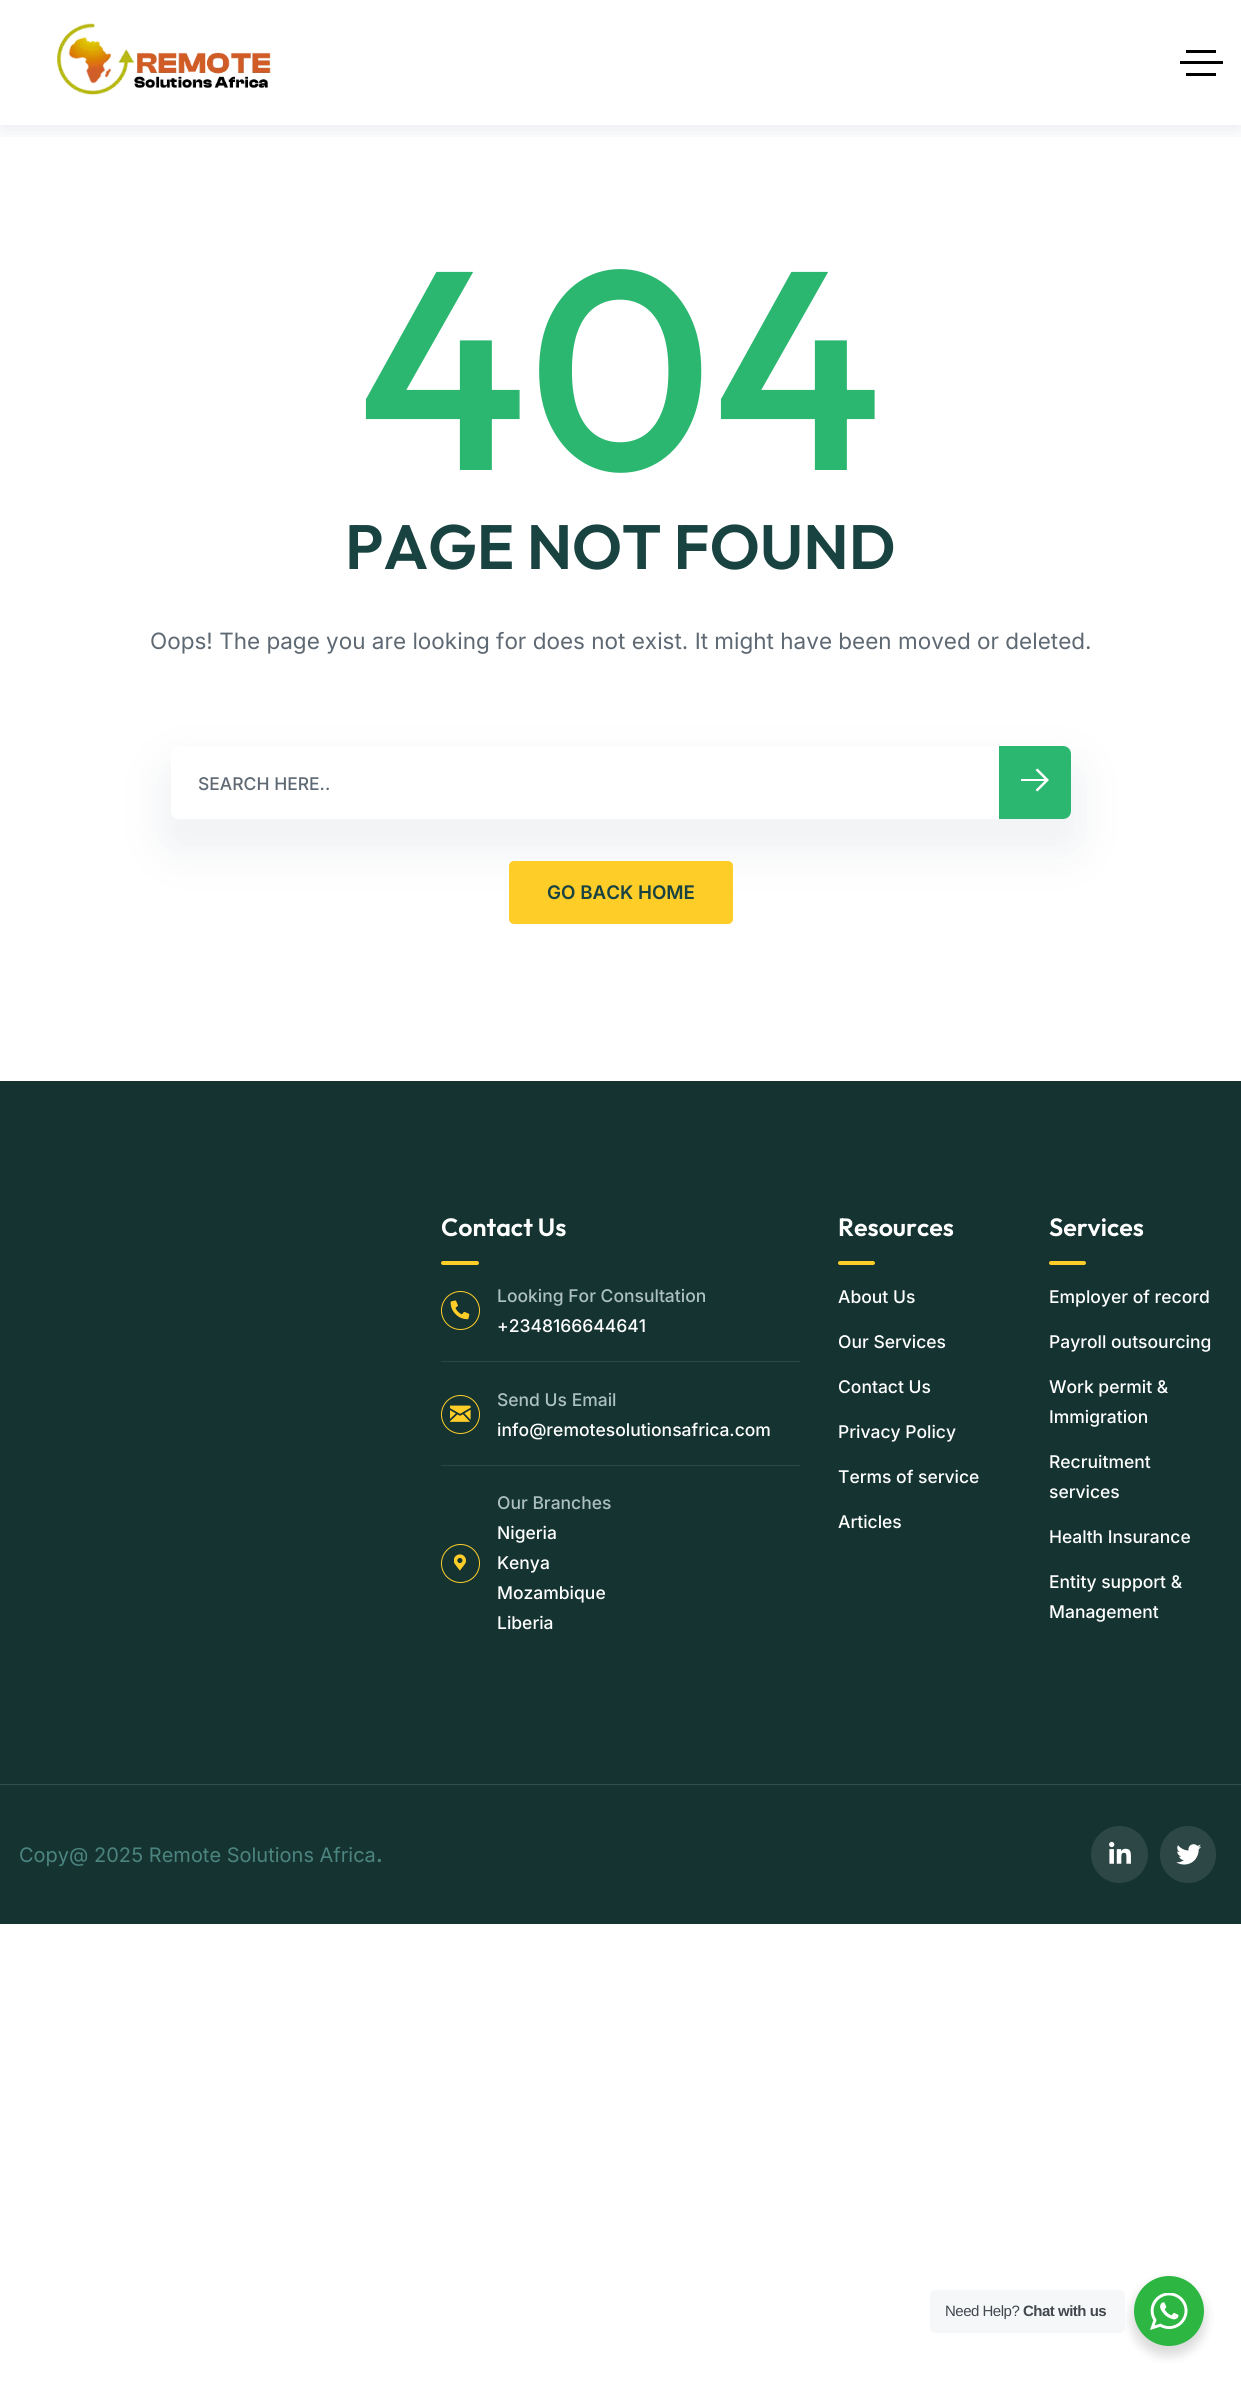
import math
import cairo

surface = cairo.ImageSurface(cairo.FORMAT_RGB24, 1241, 2383)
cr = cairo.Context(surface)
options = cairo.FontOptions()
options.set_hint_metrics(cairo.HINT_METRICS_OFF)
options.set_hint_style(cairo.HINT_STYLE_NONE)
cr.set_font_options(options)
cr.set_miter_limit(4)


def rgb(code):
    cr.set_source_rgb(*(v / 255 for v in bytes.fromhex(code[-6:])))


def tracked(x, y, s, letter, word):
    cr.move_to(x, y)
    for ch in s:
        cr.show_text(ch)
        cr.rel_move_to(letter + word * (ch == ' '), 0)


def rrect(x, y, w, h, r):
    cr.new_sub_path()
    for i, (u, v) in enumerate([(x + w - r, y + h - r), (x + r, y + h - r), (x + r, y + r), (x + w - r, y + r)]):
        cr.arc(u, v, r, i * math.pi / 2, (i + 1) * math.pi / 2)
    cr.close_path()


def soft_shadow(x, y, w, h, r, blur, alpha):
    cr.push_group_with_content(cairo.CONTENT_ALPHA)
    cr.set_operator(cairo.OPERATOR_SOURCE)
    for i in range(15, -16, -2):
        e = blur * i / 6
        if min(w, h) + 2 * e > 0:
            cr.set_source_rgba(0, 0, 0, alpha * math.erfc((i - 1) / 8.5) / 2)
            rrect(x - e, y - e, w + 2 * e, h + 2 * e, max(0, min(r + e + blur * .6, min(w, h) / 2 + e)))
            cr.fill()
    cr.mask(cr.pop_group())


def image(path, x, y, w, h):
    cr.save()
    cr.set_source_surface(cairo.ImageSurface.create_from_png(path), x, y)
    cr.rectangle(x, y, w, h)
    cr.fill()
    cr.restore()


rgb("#ffffff")
cr.paint()
cr.save()
cr.rectangle(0, 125, 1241, 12)
cr.clip()
rgb("#02154e")
soft_shadow(0, 4, 1241, 125, 0, 11, 0.09)
cr.restore()
image("img/1.png", 57, 23, 214, 72)
for x, y, w, h, color in [
    (1186, 50, 30, 3, "#000000"),
    (1180, 61, 43, 3, "#000000"),
    (1186, 73, 30, 3, "#000000"),
]:
    rgb(color)
    cr.rectangle(x, y, w, h)
    cr.fill()
rgb("#c8d0d6")
soft_shadow(159, 759, 925, 97, 20, 19, 0.25)
rgb("#ffffff")
rrect(171, 746, 900, 73, 8)
cr.fill()
rgb("#2cb770")
cr.new_path()
cr.move_to(999, 746)
cr.line_to(1063, 746)
cr.curve_to(1067.5, 746, 1071, 749.5, 1071, 754)
cr.line_to(1071, 811)
cr.curve_to(1071, 815.5, 1067.5, 819, 1063, 819)
cr.line_to(999, 819)
cr.close_path()
cr.fill()
rgb("#ffffff")
cr.new_path()
cr.move_to(1037.5, 768.5)
cr.line_to(1035.5, 770)
cr.line_to(1044.5, 779)
cr.line_to(1021, 779)
cr.line_to(1021, 781)
cr.line_to(1044.5, 781)
cr.line_to(1035.5, 790)
cr.line_to(1037.5, 791.5)
cr.line_to(1049, 780)
cr.close_path()
cr.fill()
rgb("#ffcd28")
rrect(509, 861, 224, 63, 5)
cr.fill()
rgb("#143331")
cr.rectangle(0, 1081, 1241, 703)
cr.fill()
rgb("#ffcd28")
rrect(441, 1261, 38, 4, 2)
cr.fill()
cr.arc(460.5, 1310.5, 19, 0, 2 * math.pi)
cr.set_line_width(1)
cr.stroke()
image("img/2.png", 450, 1300, 20, 20)
rgb("#2a4645")
cr.rectangle(441, 1361, 359, 1)
cr.fill()
cr.arc(460.5, 1414.5, 19, 0, 2 * math.pi)
rgb("#ffcd28")
cr.stroke()
image("img/3.png", 450, 1405, 21, 17)
rgb("#2a4645")
cr.rectangle(441, 1465, 359, 1)
cr.fill()
cr.arc(460.5, 1563.5, 19, 0, 2 * math.pi)
rgb("#ffcd28")
cr.stroke()
image("img/4.png", 454, 1554, 12, 17)
rrect(838, 1261, 37, 4, 2)
cr.fill()
rrect(1049, 1261, 37, 4, 2)
cr.fill()
rgb("#143331")
cr.rectangle(0, 1785, 1241, 139)
cr.fill()
rgb("#324d4c")
cr.rectangle(0, 1784, 1241, 1)
cr.fill()
rgb("#2c4746")
cr.arc(1119.5, 1854.5, 28.5, 0, 2 * math.pi)
cr.fill()
image("img/5.png", 1109, 1841, 22, 23)
rrect(1160, 1826, 56, 57, 28)
cr.fill()
image("img/6.png", 1176, 1844, 26, 21)
rgb("#000000")
soft_shadow(1131, 2281, 75, 75, 37.5, 5, 0.14)
rgb("#f5f7f9")
rrect(930, 2290, 195, 43, 5)
cr.fill()
rgb("#2db742")
cr.arc(1169, 2311, 35, 0, 2 * math.pi)
cr.fill()
image("img/7.png", 1150, 2293, 38, 37)
cr.select_font_face("Outfit Medium")
cr.set_font_size(283)
rgb("#2cb770")
cr.move_to(358, 470)
cr.show_text("404")
cr.select_font_face("Outfit SemiBold")
cr.set_font_size(62.5)
rgb("#194341")
cr.move_to(345, 569)
cr.show_text("PAGE NOT FOUND")
cr.select_font_face("Inter")
cr.set_font_size(22.5)
rgb("#5f6973")
cr.move_to(150, 649)
cr.show_text("Oops! The page you are looking for does not exist. It might have been moved or deleted.")
cr.select_font_face("Inter Medium")
cr.set_font_size(17.5)
cr.move_to(198, 790)
cr.show_text("SEARCH HERE..")
cr.select_font_face("Inter SemiBold")
cr.set_font_size(18.75)
rgb("#194341")
cr.move_to(547, 899)
cr.show_text("GO BACK HOME")
cr.select_font_face("Outfit SemiBold")
cr.set_font_size(25)
rgb("#ffffff")
cr.move_to(441, 1236)
cr.show_text("Contact Us")
cr.select_font_face("Inter Medium")
cr.set_font_size(17.5)
rgb("#acc0bf")
cr.move_to(497, 1302)
cr.show_text("Looking For Consultation")
rgb("#ffffff")
cr.move_to(497, 1332)
cr.show_text("+2348166644641")
rgb("#acc0bf")
cr.move_to(497, 1406)
cr.show_text("Send Us Email")
rgb("#ffffff")
cr.move_to(497, 1436)
cr.show_text("info@remotesolutionsafrica.com")
rgb("#acc0bf")
cr.move_to(497, 1509)
cr.show_text("Our Branches")
rgb("#ffffff")
for x, y, s in [
    (497, 1539, "Nigeria"),
    (497, 1569, "Kenya"),
    (497, 1599, "Mozambique"),
    (497, 1629, "Liberia"),
]:
    cr.move_to(x, y)
    cr.show_text(s)
cr.select_font_face("Outfit SemiBold")
cr.set_font_size(25)
cr.move_to(838, 1236)
cr.show_text("Resources")
cr.select_font_face("Inter Medium")
cr.set_font_size(17.5)
for x, y, s in [
    (838, 1303, "About Us"),
    (838, 1348, "Our Services"),
    (838, 1393, "Contact Us"),
    (838, 1438, "Privacy Policy"),
    (838, 1483, "Terms of service"),
    (838, 1528, "Articles"),
]:
    cr.move_to(x, y)
    cr.show_text(s)
cr.select_font_face("Outfit SemiBold")
cr.set_font_size(25)
cr.move_to(1049, 1236)
cr.show_text("Services")
cr.select_font_face("Inter Medium")
cr.set_font_size(17.5)
for x, y, s in [
    (1049, 1303, "Employer of record"),
    (1049, 1348, "Payroll outsourcing"),
    (1049, 1393, "Work permit &"),
    (1049, 1423, "Immigration"),
    (1049, 1468, "Recruitment"),
    (1049, 1498, "services"),
    (1049, 1543, "Health Insurance"),
    (1049, 1588, "Entity support &"),
    (1049, 1618, "Management"),
]:
    cr.move_to(x, y)
    cr.show_text(s)
cr.select_font_face("Inter")
cr.set_font_size(20)
rgb("#4c8480")
cr.move_to(19, 1862)
cr.show_text("Copy@ 2025 Remote Solutions Africa")
cr.select_font_face("Inter", cairo.FONT_SLANT_NORMAL, cairo.FONT_WEIGHT_BOLD)
cr.move_to(376, 1862)
cr.show_text(".")
cr.select_font_face("Liberation Sans")
cr.set_font_size(15)
rgb("#43474e")
tracked(945, 2316, "Need Help?", -0.5, 0)
cr.select_font_face("Liberation Sans", cairo.FONT_SLANT_NORMAL, cairo.FONT_WEIGHT_BOLD)
tracked(1023, 2316, "Chat with us", -0.5, 0)
surface.write_to_png("page.png")
